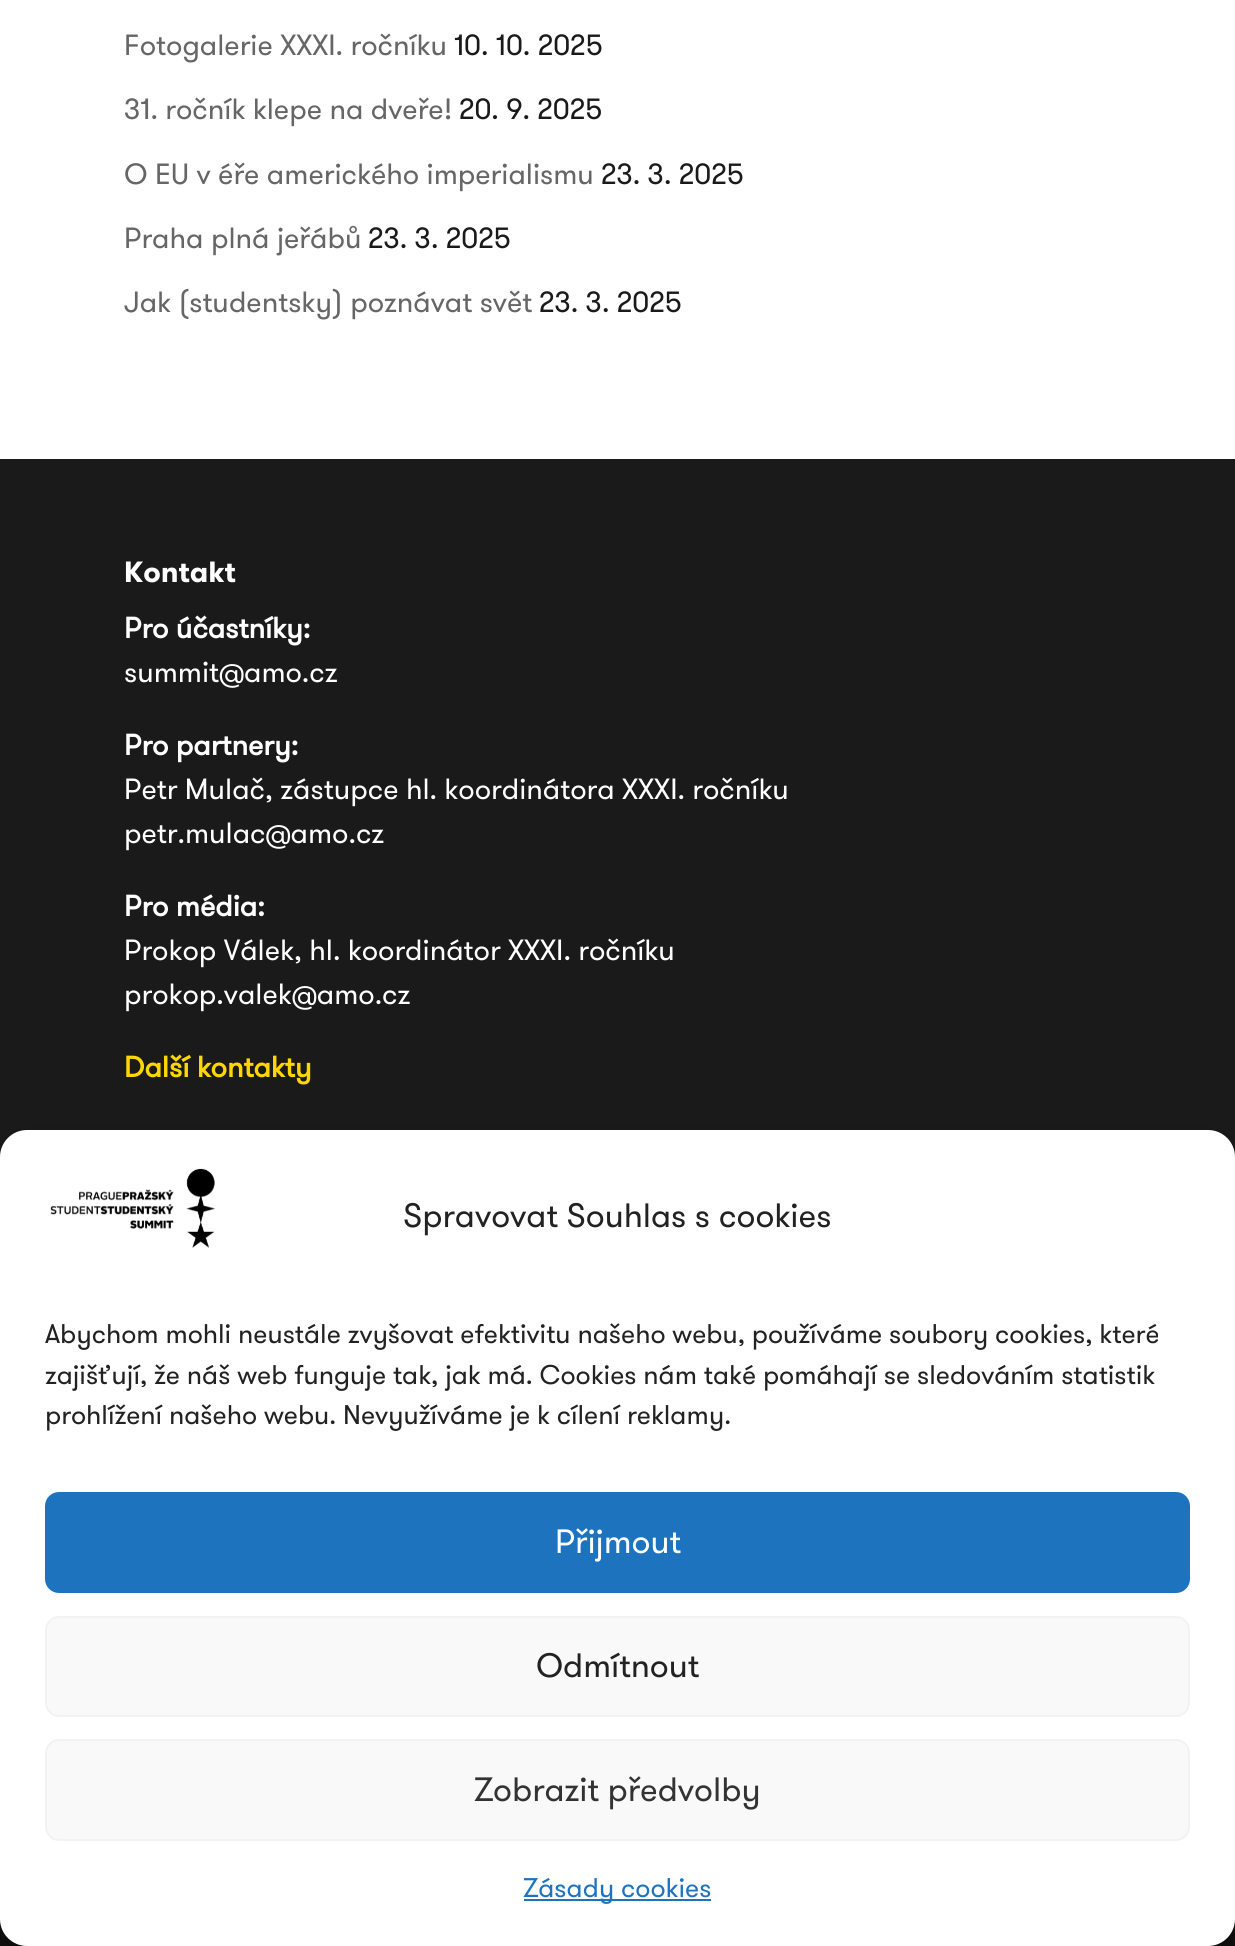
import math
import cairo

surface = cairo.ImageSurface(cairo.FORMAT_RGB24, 1235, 1946)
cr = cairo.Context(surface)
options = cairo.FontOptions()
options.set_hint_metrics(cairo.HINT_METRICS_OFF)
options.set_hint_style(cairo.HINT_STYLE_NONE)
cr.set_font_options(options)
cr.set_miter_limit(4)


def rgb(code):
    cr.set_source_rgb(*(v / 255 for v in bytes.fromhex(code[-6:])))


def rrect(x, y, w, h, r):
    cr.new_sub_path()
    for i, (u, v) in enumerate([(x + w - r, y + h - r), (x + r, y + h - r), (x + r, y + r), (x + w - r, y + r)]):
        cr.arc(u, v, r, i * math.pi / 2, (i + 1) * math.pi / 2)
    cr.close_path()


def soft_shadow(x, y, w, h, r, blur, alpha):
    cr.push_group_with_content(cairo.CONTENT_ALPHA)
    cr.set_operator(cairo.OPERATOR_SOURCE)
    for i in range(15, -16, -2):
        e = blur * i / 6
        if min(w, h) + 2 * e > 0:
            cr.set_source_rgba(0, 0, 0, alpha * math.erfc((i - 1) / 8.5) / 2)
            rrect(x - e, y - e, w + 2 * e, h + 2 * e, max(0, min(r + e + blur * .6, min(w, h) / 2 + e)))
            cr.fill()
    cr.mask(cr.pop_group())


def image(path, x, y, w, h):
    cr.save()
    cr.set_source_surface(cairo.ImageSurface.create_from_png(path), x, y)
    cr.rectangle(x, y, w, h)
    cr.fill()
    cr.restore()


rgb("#ffffff")
cr.paint()
rgb("#1a1a1a")
cr.rectangle(0, 459, 1235, 698)
cr.fill()
rgb("#121212")
cr.rectangle(0, 1919, 1235, 27)
cr.fill()
rgb("#000000")
soft_shadow(0, 1143, 1235, 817, 27, 7, 0.23)
soft_shadow(0, 1152, 1235, 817, 27, 22.5, 0.19)
rgb("#ffffff")
rrect(0, 1130, 1235, 816, 27)
cr.fill()
image("img/1.png", 50, 1168, 165, 80)
rgb("#1e73be")
rrect(46, 1493, 1143, 99, 13)
cr.fill_preserve()
cr.stroke()
rgb("#f9f9f9")
rrect(46, 1617, 1143, 99, 13)
cr.fill_preserve()
rgb("#f2f2f2")
cr.stroke()
rgb("#f9f9f9")
rrect(46, 1740, 1143, 100, 13)
cr.fill_preserve()
rgb("#f2f2f2")
cr.stroke()
rgb("#1e73be")
cr.rectangle(524, 1899, 187, 2)
cr.fill()
cr.select_font_face("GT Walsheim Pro")
cr.set_font_size(29.25)
rgb("#666666")
cr.move_to(124, 55)
cr.show_text("Fotogalerie XXXI. ročníku")
rgb("#1a1a1a")
cr.move_to(454, 55)
cr.show_text("10. 10. 2025")
rgb("#666666")
cr.move_to(124, 119)
cr.show_text("31. ročník klepe na dveře!")
rgb("#1a1a1a")
cr.move_to(459, 119)
cr.show_text("20. 9. 2025")
rgb("#666666")
cr.move_to(124, 184)
cr.show_text("O EU v éře amerického imperialismu")
rgb("#1a1a1a")
cr.move_to(601, 184)
cr.show_text("23. 3. 2025")
rgb("#666666")
cr.move_to(124, 248)
cr.show_text("Praha plná jeřábů")
rgb("#1a1a1a")
cr.move_to(368, 248)
cr.show_text("23. 3. 2025")
rgb("#666666")
cr.move_to(124, 312)
cr.show_text("Jak (studentsky) poznávat svět")
rgb("#1a1a1a")
cr.move_to(539, 312)
cr.show_text("23. 3. 2025")
cr.select_font_face("GT Walsheim Pro", cairo.FONT_SLANT_NORMAL, cairo.FONT_WEIGHT_BOLD)
rgb("#ffffff")
cr.move_to(124, 582)
cr.show_text("Kontakt")
cr.select_font_face("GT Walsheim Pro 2", cairo.FONT_SLANT_NORMAL, cairo.FONT_WEIGHT_BOLD)
cr.move_to(124, 638)
cr.show_text("Pro účastníky:")
cr.select_font_face("GT Walsheim Pro")
cr.move_to(124, 682)
cr.show_text("summit@amo.cz")
cr.select_font_face("GT Walsheim Pro 2", cairo.FONT_SLANT_NORMAL, cairo.FONT_WEIGHT_BOLD)
cr.move_to(124, 755)
cr.show_text("Pro partnery:")
cr.select_font_face("GT Walsheim Pro")
cr.move_to(124, 799)
cr.show_text("Petr Mulač, zástupce hl. koordinátora XXXI. ročníku")
cr.move_to(124, 843)
cr.show_text("petr.mulac@amo.cz")
cr.select_font_face("GT Walsheim Pro 2", cairo.FONT_SLANT_NORMAL, cairo.FONT_WEIGHT_BOLD)
cr.move_to(124, 916)
cr.show_text("Pro média:")
cr.select_font_face("GT Walsheim Pro")
cr.move_to(124, 960)
cr.show_text("Prokop Válek, hl. koordinátor XXXI. ročníku")
cr.move_to(124, 1004)
cr.show_text("prokop.valek@amo.cz")
cr.select_font_face("GT Walsheim Pro 2", cairo.FONT_SLANT_NORMAL, cairo.FONT_WEIGHT_BOLD)
rgb("#ffd600")
cr.move_to(124, 1077)
cr.show_text("Další kontakty")
cr.select_font_face("GT Walsheim Pro")
cr.set_font_size(33.75)
rgb("#222222")
cr.move_to(403, 1227)
cr.show_text("Spravovat Souhlas s cookies")
cr.set_font_size(27)
for x, y, s in [
    (45, 1343, "Abychom mohli neustále zvyšovat efektivitu našeho webu, používáme soubory cookies, které"),
    (45, 1384, "zajišťují, že náš web funguje tak, jak má. Cookies nám také pomáhají se sledováním statistik"),
    (45, 1424, "prohlížení našeho webu. Nevyužíváme je k cílení reklamy."),
]:
    cr.move_to(x, y)
    cr.show_text(s)
cr.set_font_size(33.75)
rgb("#ffffff")
cr.move_to(555, 1553)
cr.show_text("Přijmout")
rgb("#222222")
cr.move_to(536, 1677)
cr.show_text("Odmítnout")
rgb("#333333")
cr.move_to(474, 1801)
cr.show_text("Zobrazit předvolby")
cr.set_font_size(27)
rgb("#1e73be")
cr.move_to(523, 1897)
cr.show_text("Zásady cookies")
surface.write_to_png("page.png")
